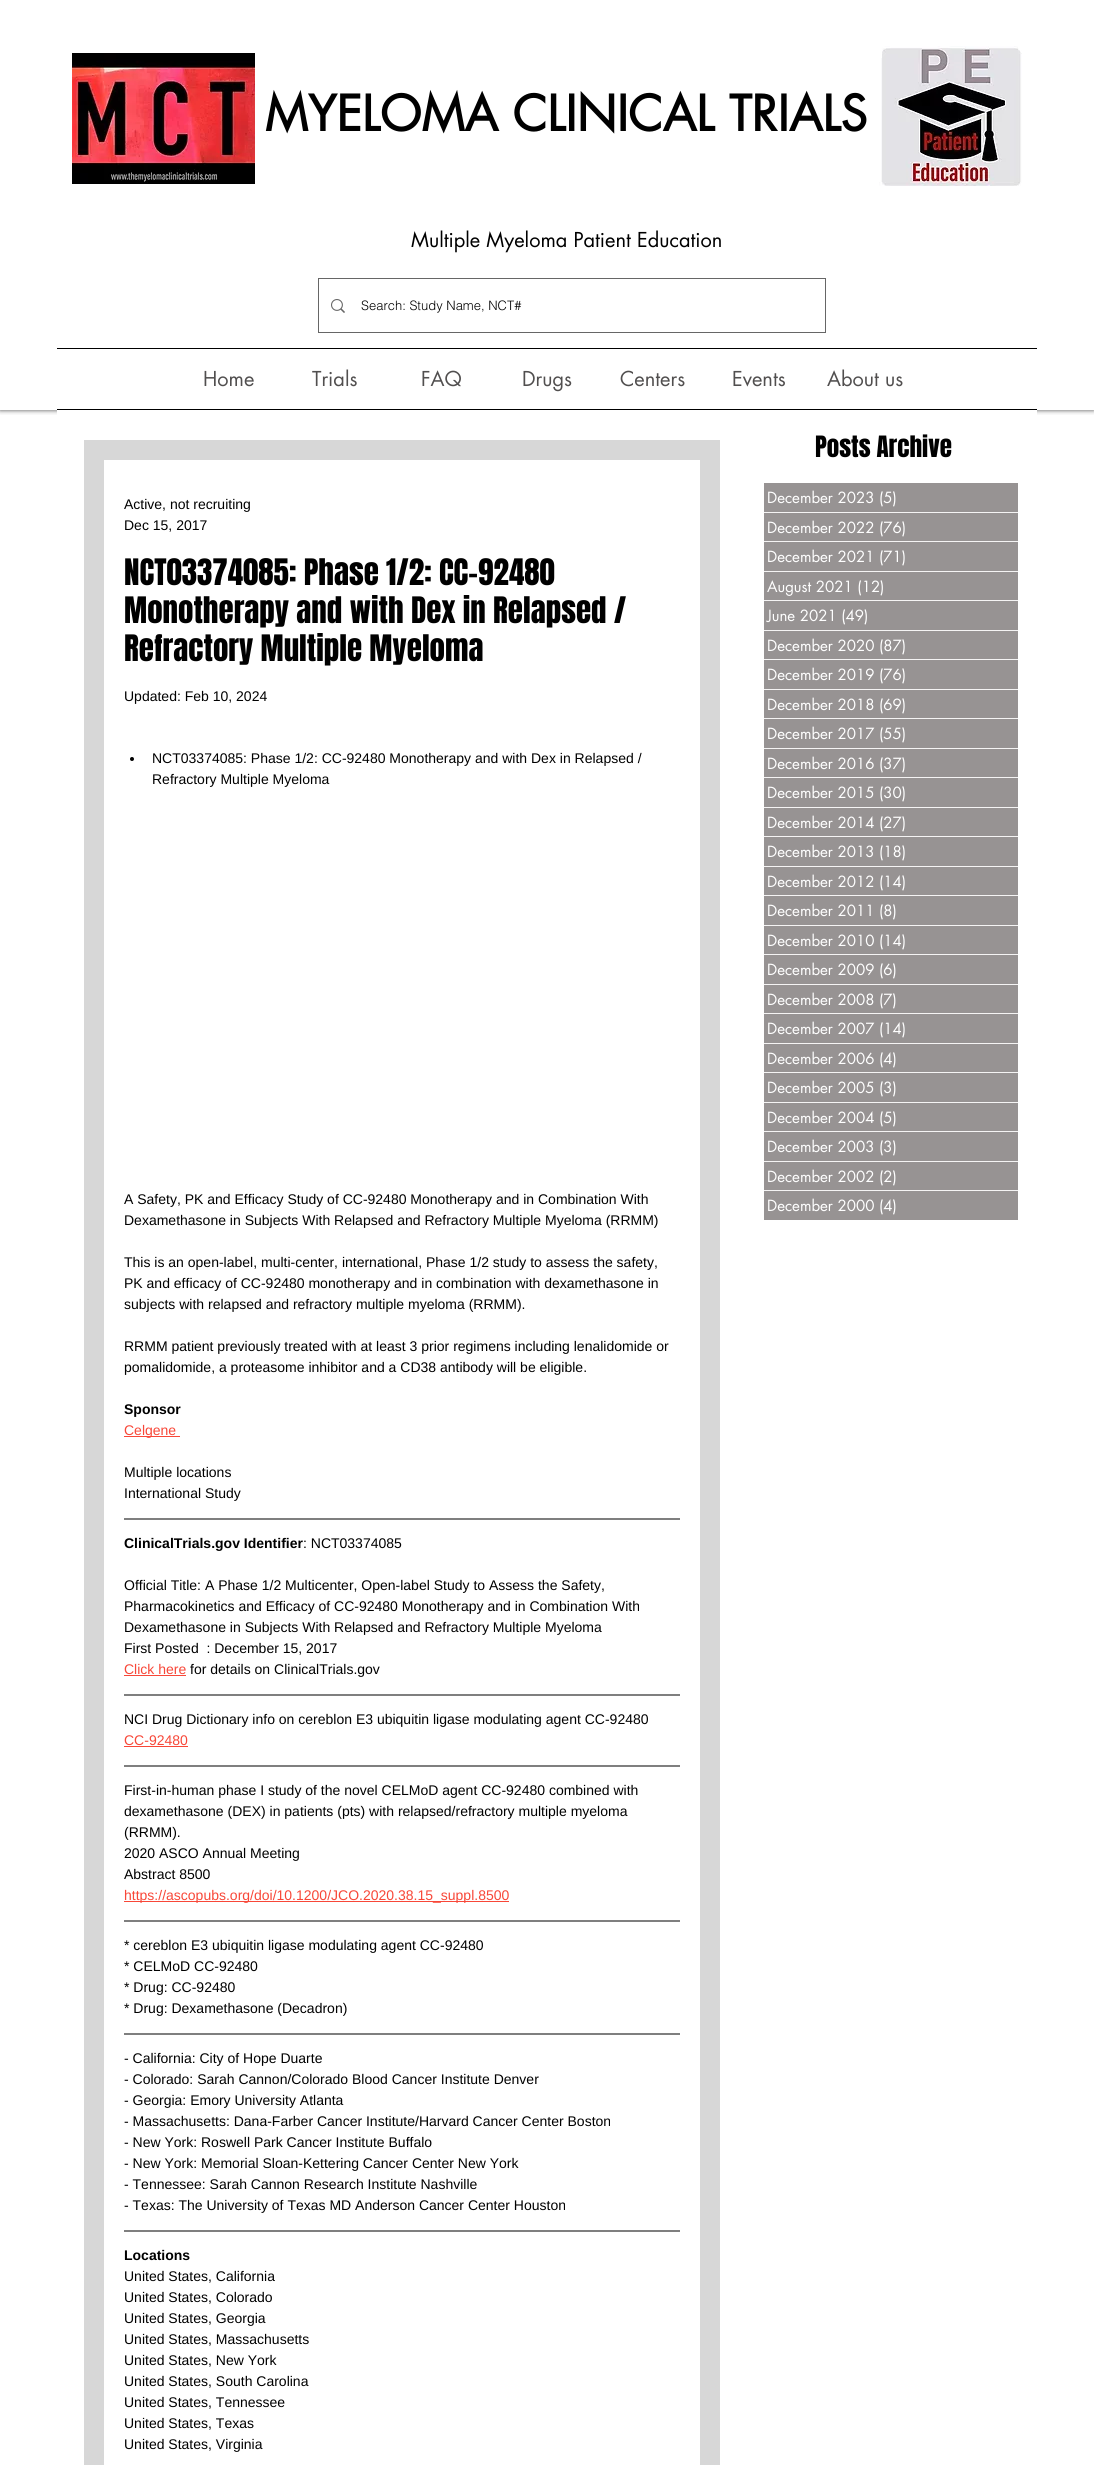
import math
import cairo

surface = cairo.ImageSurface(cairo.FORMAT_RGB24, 1094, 2465)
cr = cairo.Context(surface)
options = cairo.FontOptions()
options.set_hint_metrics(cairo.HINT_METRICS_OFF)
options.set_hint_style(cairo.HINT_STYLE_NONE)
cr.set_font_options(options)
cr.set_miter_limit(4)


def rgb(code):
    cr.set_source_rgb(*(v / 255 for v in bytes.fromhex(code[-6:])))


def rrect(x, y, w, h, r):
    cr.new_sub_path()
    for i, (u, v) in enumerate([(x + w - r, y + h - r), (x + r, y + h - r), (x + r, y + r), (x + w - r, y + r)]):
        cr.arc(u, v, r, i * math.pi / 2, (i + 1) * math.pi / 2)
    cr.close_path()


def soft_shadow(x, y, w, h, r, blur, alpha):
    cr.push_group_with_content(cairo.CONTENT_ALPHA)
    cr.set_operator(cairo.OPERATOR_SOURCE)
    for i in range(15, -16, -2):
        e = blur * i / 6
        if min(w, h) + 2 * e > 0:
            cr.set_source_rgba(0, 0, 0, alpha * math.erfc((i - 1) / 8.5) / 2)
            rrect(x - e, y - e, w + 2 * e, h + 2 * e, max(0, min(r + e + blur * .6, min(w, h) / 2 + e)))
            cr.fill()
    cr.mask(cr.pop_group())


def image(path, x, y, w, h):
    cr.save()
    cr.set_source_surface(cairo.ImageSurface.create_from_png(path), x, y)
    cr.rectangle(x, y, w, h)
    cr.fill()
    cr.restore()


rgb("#ffffff")
cr.paint()
cr.save()
cr.rectangle(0, 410, 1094, 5)
cr.clip()
rgb("#000000")
soft_shadow(0, 0, 1094, 410, 0, 2.5, 0.7)
cr.restore()
image("img/1.png", 72, 53, 183, 131)
image("img/2.png", 879, 46, 143, 140)
cr.rectangle(318.5, 278.5, 507, 54)
rgb("#666666")
cr.set_line_width(1)
cr.stroke()
image("img/3.png", 331, 299, 14, 14)
for x, y, w, h, color in [
    (57, 348, 980, 1, "#000000"),
    (57, 409, 980, 1, "#000000"),
    (57, 410, 980, 5, "#ffffff"),
    (84, 440, 636, 2025, "#d7d7d7"),
    (104, 460, 596, 2005, "#ffffff"),
]:
    rgb(color)
    cr.rectangle(x, y, w, h)
    cr.fill()
rgb("#000000")
cr.arc(132, 759, 2, 0, 2 * math.pi)
cr.fill()
rgb("#f84738")
cr.rectangle(124, 1436, 56, 1)
cr.fill()
cr.new_path()
cr.move_to(124, 1519)
cr.line_to(680, 1519)
rgb("#000000")
cr.stroke()
rgb("#f84738")
cr.rectangle(124, 1675, 62, 1)
cr.fill()
cr.new_path()
cr.move_to(124, 1695)
cr.line_to(680, 1695)
rgb("#000000")
cr.stroke()
rgb("#f84738")
cr.rectangle(124, 1746, 64, 1)
cr.fill()
cr.new_path()
cr.move_to(124, 1766)
cr.line_to(680, 1766)
rgb("#000000")
cr.stroke()
rgb("#f84738")
cr.rectangle(124, 1901, 385, 1)
cr.fill()
cr.new_path()
cr.move_to(124, 1921)
cr.line_to(680, 1921)
rgb("#000000")
cr.stroke()
cr.new_path()
cr.move_to(124, 2034)
cr.line_to(680, 2034)
cr.stroke()
cr.new_path()
cr.move_to(124, 2231)
cr.line_to(680, 2231)
cr.stroke()
for x, y, w, h, color in [
    (764, 483, 254, 737, "#979393"),
    (764, 512, 254, 1, "#f5f4f4"),
    (764, 541, 254, 1, "#f5f4f4"),
    (764, 571, 254, 1, "#f5f4f4"),
    (764, 600, 254, 1, "#f5f4f4"),
    (764, 630, 254, 1, "#f5f4f4"),
    (764, 659, 254, 1, "#f5f4f4"),
    (764, 689, 254, 1, "#f5f4f4"),
    (764, 718, 254, 1, "#f5f4f4"),
    (764, 748, 254, 1, "#f5f4f4"),
    (764, 777, 254, 1, "#f5f4f4"),
    (764, 807, 254, 1, "#f5f4f4"),
    (764, 836, 254, 1, "#f5f4f4"),
    (764, 866, 254, 1, "#f5f4f4"),
    (764, 895, 254, 1, "#f5f4f4"),
    (764, 925, 254, 1, "#f5f4f4"),
    (764, 954, 254, 1, "#f5f4f4"),
    (764, 984, 254, 1, "#f5f4f4"),
    (764, 1013, 254, 1, "#f5f4f4"),
    (764, 1043, 254, 1, "#f5f4f4"),
    (764, 1072, 254, 1, "#f5f4f4"),
    (764, 1102, 254, 1, "#f5f4f4"),
    (764, 1131, 254, 1, "#f5f4f4"),
    (764, 1161, 254, 1, "#f5f4f4"),
    (764, 1190, 254, 1, "#f5f4f4"),
]:
    rgb(color)
    cr.rectangle(x, y, w, h)
    cr.fill()
cr.select_font_face("futura", cairo.FONT_SLANT_NORMAL, cairo.FONT_WEIGHT_BOLD)
cr.set_font_size(48)
rgb("#000000")
cr.move_to(265, 131)
cr.show_text("MYELOMA CLINICAL TRIALS")
cr.select_font_face("futura")
cr.set_font_size(20)
cr.move_to(411, 247)
cr.show_text("Multiple Myeloma Patient Education")
cr.select_font_face("helvetica Light")
cr.set_font_size(13)
cr.move_to(361, 310)
cr.show_text("Search: Study Name, NCT#")
cr.select_font_face("futura")
cr.set_font_size(20)
rgb("#514f4f")
for x, y, s in [
    (203, 386, "Home"),
    (312, 386, "Trials"),
    (421, 386, "FAQ"),
    (522, 386, "Drugs"),
    (620, 386, "Centers"),
    (732, 386, "Events"),
    (827, 386, "About us"),
]:
    cr.move_to(x, y)
    cr.show_text(s)
cr.select_font_face("Anton")
cr.set_font_size(25)
rgb("#000000")
cr.move_to(815, 457)
cr.show_text("Posts Archive")
cr.select_font_face("Liberation Sans")
cr.set_font_size(14)
cr.move_to(124, 509)
cr.show_text("Active, not recruiting")
cr.move_to(124, 530)
cr.show_text("Dec 15, 2017")
cr.select_font_face("Anton")
cr.set_font_size(31)
for x, y, s in [
    (124, 585, "NCT03374085: Phase 1/2: CC-92480"),
    (124, 623, "Monotherapy and with Dex in Relapsed /"),
    (124, 661, "Refractory Multiple Myeloma"),
]:
    cr.move_to(x, y)
    cr.show_text(s)
cr.select_font_face("Liberation Sans")
cr.set_font_size(14)
for x, y, s in [
    (124, 701, "Updated: Feb 10, 2024"),
    (152, 763, "NCT03374085: Phase 1/2: CC-92480 Monotherapy and with Dex in Relapsed /"),
    (152, 784, "Refractory Multiple Myeloma"),
    (124, 1204, "A Safety, PK and Efficacy Study of CC-92480 Monotherapy and in Combination With"),
    (124, 1225, "Dexamethasone in Subjects With Relapsed and Refractory Multiple Myeloma (RRMM)"),
    (124, 1267, "This is an open-label, multi-center, international, Phase 1/2 study to assess the safety,"),
    (124, 1288, "PK and efficacy of CC-92480 monotherapy and in combination with dexamethasone in"),
    (124, 1309, "subjects with relapsed and refractory multiple myeloma (RRMM)."),
    (124, 1351, "RRMM patient previously treated with at least 3 prior regimens including lenalidomide or"),
    (124, 1372, "pomalidomide, a proteasome inhibitor and a CD38 antibody will be eligible."),
]:
    cr.move_to(x, y)
    cr.show_text(s)
cr.select_font_face("Liberation Sans", cairo.FONT_SLANT_NORMAL, cairo.FONT_WEIGHT_BOLD)
cr.move_to(124, 1414)
cr.show_text("Sponsor")
cr.select_font_face("Liberation Sans")
rgb("#f84738")
cr.move_to(124, 1435)
cr.show_text("Celgene")
rgb("#000000")
cr.move_to(124, 1477)
cr.show_text("Multiple locations")
cr.move_to(124, 1498)
cr.show_text("International Study")
cr.select_font_face("Liberation Sans", cairo.FONT_SLANT_NORMAL, cairo.FONT_WEIGHT_BOLD)
cr.move_to(124, 1548)
cr.show_text("ClinicalTrials.gov Identifier")
cr.select_font_face("Liberation Sans")
for x, y, s in [
    (303, 1548, ": NCT03374085"),
    (124, 1590, "Official Title: A Phase 1/2 Multicenter, Open-label Study to Assess the Safety,"),
    (124, 1611, "Pharmacokinetics and Efficacy of CC-92480 Monotherapy and in Combination With"),
    (124, 1632, "Dexamethasone in Subjects With Relapsed and Refractory Multiple Myeloma"),
    (124, 1653, "First Posted  : December 15, 2017"),
]:
    cr.move_to(x, y)
    cr.show_text(s)
rgb("#f84738")
cr.move_to(124, 1674)
cr.show_text("Click here")
rgb("#000000")
cr.move_to(190, 1674)
cr.show_text("for details on ClinicalTrials.gov")
cr.move_to(124, 1724)
cr.show_text("NCI Drug Dictionary info on cereblon E3 ubiquitin ligase modulating agent CC-92480")
rgb("#f84738")
cr.move_to(124, 1745)
cr.show_text("CC-92480")
rgb("#000000")
for x, y, s in [
    (124, 1795, "First-in-human phase I study of the novel CELMoD agent CC-92480 combined with"),
    (124, 1816, "dexamethasone (DEX) in patients (pts) with relapsed/refractory multiple myeloma"),
    (124, 1837, "(RRMM)."),
    (124, 1858, "2020 ASCO Annual Meeting"),
    (124, 1879, "Abstract 8500"),
]:
    cr.move_to(x, y)
    cr.show_text(s)
rgb("#f84738")
cr.move_to(124, 1900)
cr.show_text("https://ascopubs.org/doi/10.1200/JCO.2020.38.15_suppl.8500")
rgb("#000000")
for x, y, s in [
    (124, 1950, "* cereblon E3 ubiquitin ligase modulating agent CC-92480"),
    (124, 1971, "* CELMoD CC-92480"),
    (124, 1992, "* Drug: CC-92480"),
    (124, 2013, "* Drug: Dexamethasone (Decadron)"),
    (124, 2063, "- California: City of Hope Duarte"),
    (124, 2084, "- Colorado: Sarah Cannon/Colorado Blood Cancer Institute Denver"),
    (124, 2105, "- Georgia: Emory University Atlanta"),
    (124, 2126, "- Massachusetts: Dana-Farber Cancer Institute/Harvard Cancer Center Boston"),
    (124, 2147, "- New York: Roswell Park Cancer Institute Buffalo"),
    (124, 2168, "- New York: Memorial Sloan-Kettering Cancer Center New York"),
    (124, 2189, "- Tennessee: Sarah Cannon Research Institute Nashville"),
    (124, 2210, "- Texas: The University of Texas MD Anderson Cancer Center Houston"),
]:
    cr.move_to(x, y)
    cr.show_text(s)
cr.select_font_face("Liberation Sans", cairo.FONT_SLANT_NORMAL, cairo.FONT_WEIGHT_BOLD)
cr.move_to(124, 2260)
cr.show_text("Locations")
cr.select_font_face("Liberation Sans")
for x, y, s in [
    (124, 2281, "United States, California"),
    (124, 2302, "United States, Colorado"),
    (124, 2323, "United States, Georgia"),
    (124, 2344, "United States, Massachusetts"),
    (124, 2365, "United States, New York"),
    (124, 2386, "United States, South Carolina"),
    (124, 2407, "United States, Tennessee"),
    (124, 2428, "United States, Texas"),
    (124, 2449, "United States, Virginia"),
]:
    cr.move_to(x, y)
    cr.show_text(s)
cr.select_font_face("futura")
cr.set_font_size(15)
rgb("#ffffff")
for x, y, s in [
    (767, 503, "December 2023 (5)"),
    (767, 533, "December 2022 (76)"),
    (767, 562, "December 2021 (71)"),
    (767, 592, "August 2021 (12)"),
    (767, 621, "June 2021 (49)"),
    (767, 651, "December 2020 (87)"),
    (767, 680, "December 2019 (76)"),
    (767, 710, "December 2018 (69)"),
    (767, 739, "December 2017 (55)"),
    (767, 769, "December 2016 (37)"),
    (767, 798, "December 2015 (30)"),
    (767, 828, "December 2014 (27)"),
    (767, 857, "December 2013 (18)"),
    (767, 887, "December 2012 (14)"),
    (767, 916, "December 2011 (8)"),
    (767, 946, "December 2010 (14)"),
    (767, 975, "December 2009 (6)"),
    (767, 1005, "December 2008 (7)"),
    (767, 1034, "December 2007 (14)"),
    (767, 1064, "December 2006 (4)"),
    (767, 1093, "December 2005 (3)"),
    (767, 1123, "December 2004 (5)"),
    (767, 1152, "December 2003 (3)"),
    (767, 1182, "December 2002 (2)"),
    (767, 1211, "December 2000 (4)"),
]:
    cr.move_to(x, y)
    cr.show_text(s)
surface.write_to_png("page.png")
